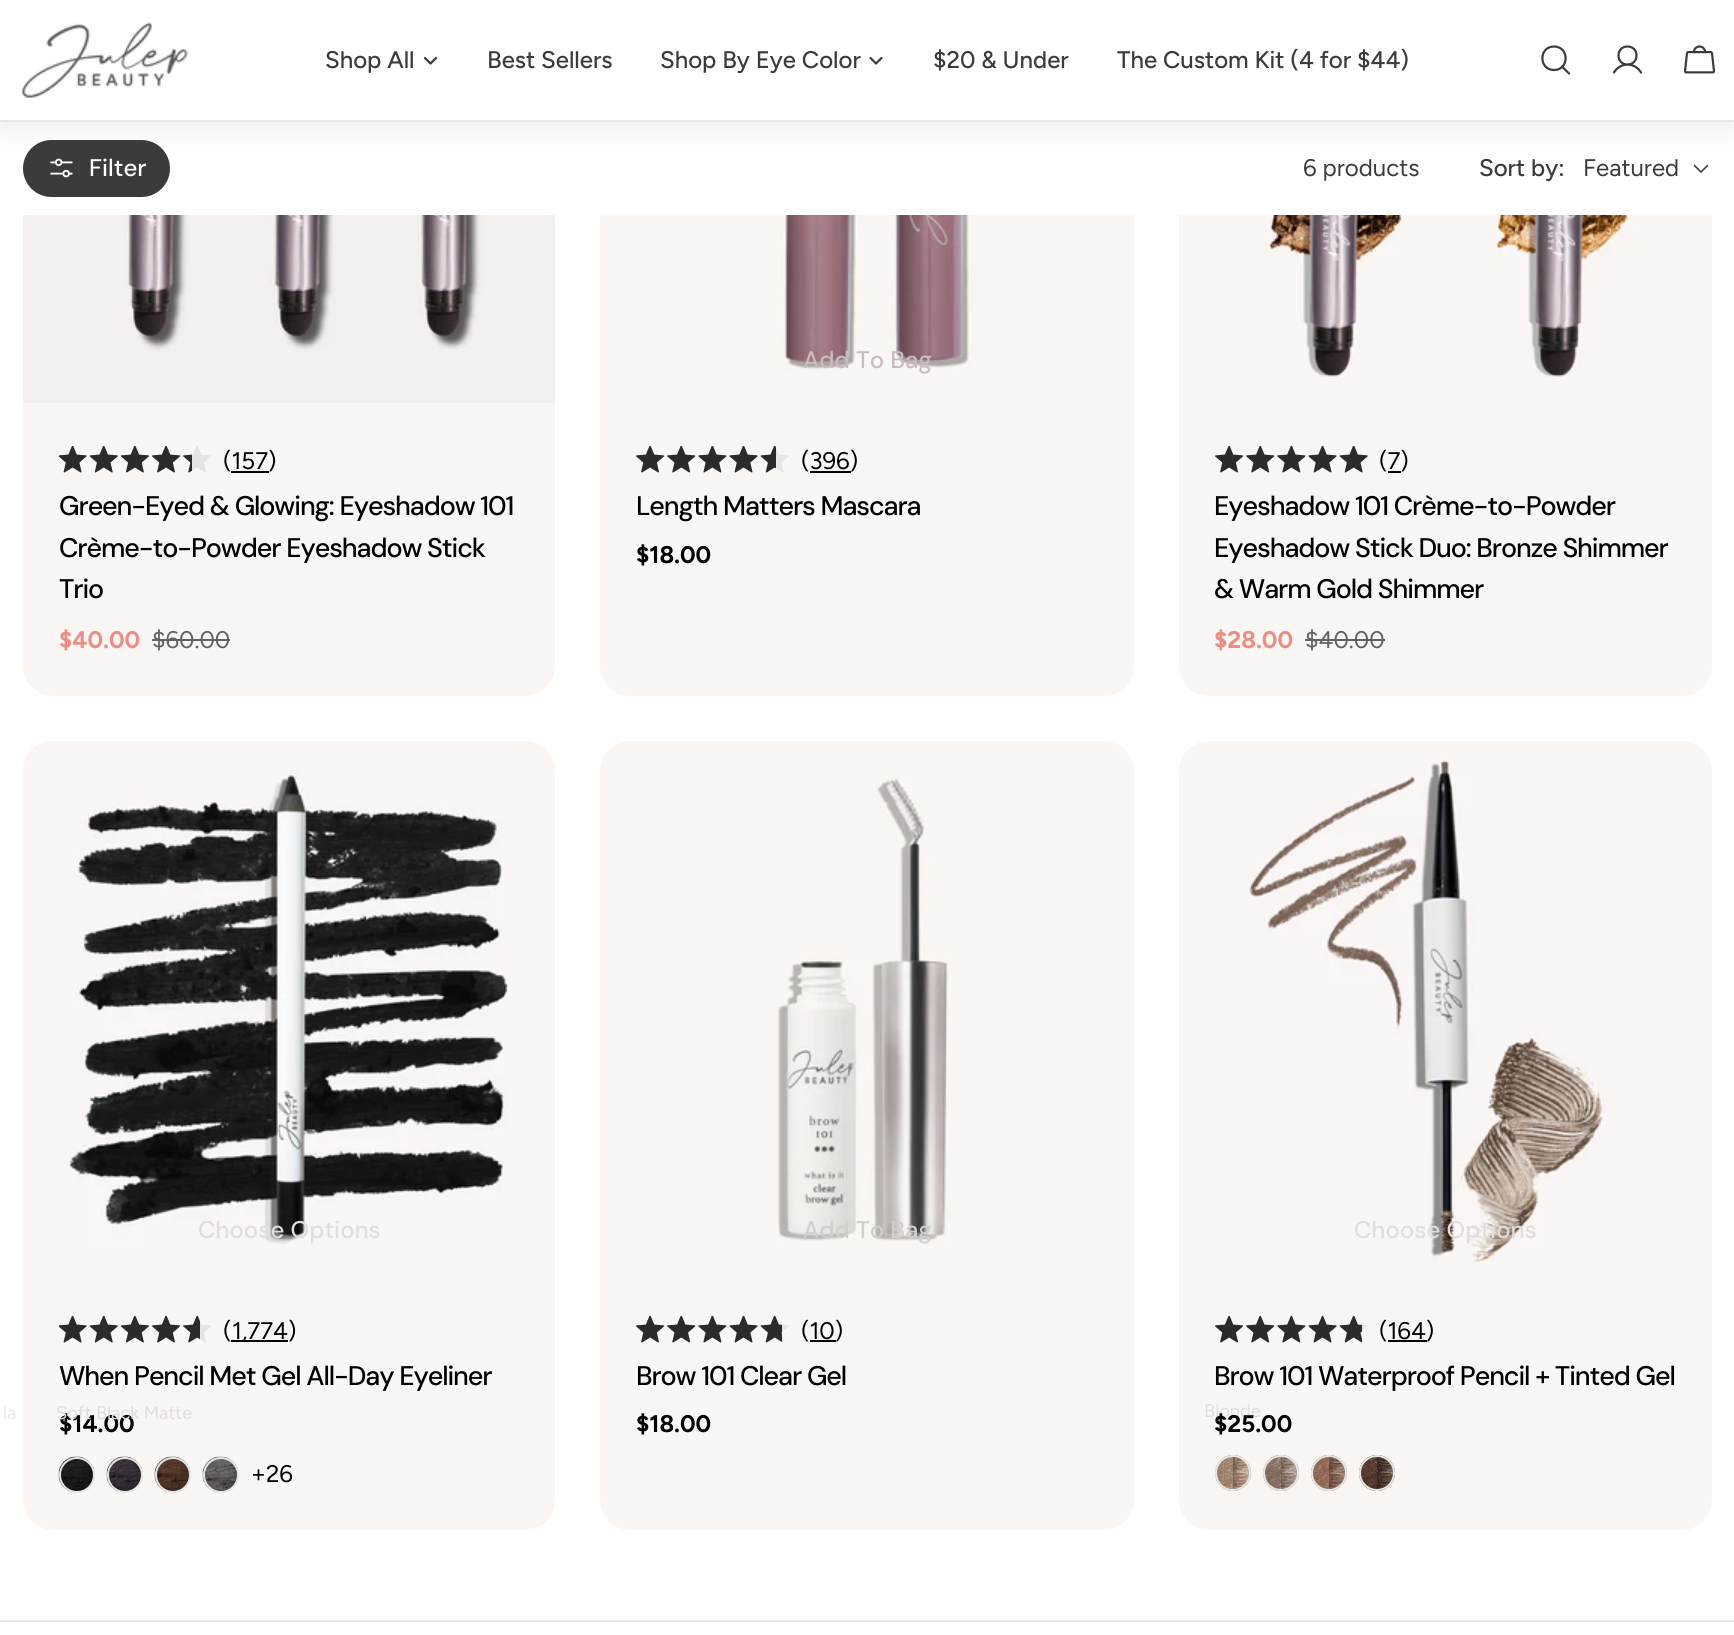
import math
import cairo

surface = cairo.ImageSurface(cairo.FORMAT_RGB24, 1734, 1635)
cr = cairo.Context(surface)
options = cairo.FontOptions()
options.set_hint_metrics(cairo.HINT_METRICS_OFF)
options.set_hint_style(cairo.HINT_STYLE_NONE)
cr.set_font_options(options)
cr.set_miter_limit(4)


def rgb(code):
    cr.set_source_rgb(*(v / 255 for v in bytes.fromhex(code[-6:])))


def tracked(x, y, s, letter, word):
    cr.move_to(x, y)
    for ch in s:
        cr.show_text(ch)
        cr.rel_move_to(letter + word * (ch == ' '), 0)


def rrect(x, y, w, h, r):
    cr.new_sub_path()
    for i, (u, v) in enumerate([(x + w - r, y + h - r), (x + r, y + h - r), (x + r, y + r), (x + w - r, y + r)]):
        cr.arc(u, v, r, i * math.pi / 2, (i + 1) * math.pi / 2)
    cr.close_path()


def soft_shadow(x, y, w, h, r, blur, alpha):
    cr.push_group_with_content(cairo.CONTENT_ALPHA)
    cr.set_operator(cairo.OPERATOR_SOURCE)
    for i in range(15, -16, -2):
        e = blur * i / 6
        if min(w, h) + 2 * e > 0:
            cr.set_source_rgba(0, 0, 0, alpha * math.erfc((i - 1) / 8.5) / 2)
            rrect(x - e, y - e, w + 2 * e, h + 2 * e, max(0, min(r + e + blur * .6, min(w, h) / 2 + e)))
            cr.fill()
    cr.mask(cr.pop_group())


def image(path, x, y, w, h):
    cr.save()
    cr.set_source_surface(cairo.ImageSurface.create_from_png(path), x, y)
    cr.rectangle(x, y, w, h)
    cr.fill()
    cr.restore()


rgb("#ffffff")
cr.paint()
rgb("#faf6f3")
rrect(23, -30, 532, 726, 30)
cr.fill()
rrect(600, -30, 534, 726, 30)
cr.fill()
rrect(1179, -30, 533, 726, 30)
cr.fill()
rgb("#ffffff")
cr.rectangle(23, 122, 1689, 93)
cr.fill()
rgb("#3b3b3b")
rrect(23, 140, 147, 57, 28.5)
cr.fill()
image("img/3.png", 50, 158, 23, 20)
cr.new_path()
cr.move_to(1707.5, 165.5)
cr.line_to(1701, 172)
cr.line_to(1694.5, 165.5)
cr.set_line_width(1.6)
cr.set_line_cap(cairo.LINE_CAP_ROUND)
cr.set_line_join(cairo.LINE_JOIN_ROUND)
cr.stroke()
rgb("#3b3b3b")
soft_shadow(0, 6, 1734, 122, 0, 13.5, 0.1)
rgb("#e6e6e6")
cr.rectangle(0, 120, 1734, 2)
cr.fill()
rgb("#ffffff")
cr.rectangle(0, 0, 1734, 120)
cr.fill()
image("img/1.png", 22, 22, 166, 76)
cr.new_path()
cr.move_to(436, 58)
cr.line_to(430.5, 63.5)
cr.line_to(425, 58)
rgb("#3b3b3b")
cr.set_line_width(2.2)
cr.stroke()
cr.new_path()
cr.move_to(881.5, 58)
cr.line_to(876, 63.5)
cr.line_to(870.5, 58)
cr.stroke()
cr.new_path()
cr.move_to(1554, 70)
cr.curve_to(1569.5, 70, 1569.5, 46.5, 1554, 46.5)
cr.curve_to(1538.5, 46.5, 1538.5, 70, 1554, 70)
cr.close_path()
cr.move_to(1562, 66.5)
cr.line_to(1569, 73.5)
cr.stroke()
cr.new_path()
cr.move_to(1627.5, 64.5)
cr.curve_to(1639.5, 64.5, 1639.5, 46.5, 1627.5, 46.5)
cr.curve_to(1615.5, 46.5, 1615.5, 64.5, 1627.5, 64.5)
cr.close_path()
cr.move_to(1614, 72.5)
cr.curve_to(1620, 62, 1635, 62, 1641, 72.5)
cr.stroke()
image("img/2.png", 1683, 45, 33, 29)
image("img/4.png", 23, 215, 532, 188)
image("img/5.png", 58, 445, 153, 28)
image("img/6.png", 59, 446, 133, 27)
rgb("#000000")
cr.rectangle(231, 471, 38, 2)
cr.fill()
rgb("#646261")
cr.rectangle(152, 639, 78, 2)
cr.fill()
image("img/7.png", 781, 215, 192, 155)
image("img/8.png", 636, 445, 153, 28)
image("img/9.png", 636, 446, 140, 27)
rgb("#000000")
cr.rectangle(810, 471, 41, 2)
cr.fill()
image("img/10.png", 1220, 215, 452, 163)
image("img/8.png", 1215, 445, 153, 28)
image("img/11.png", 1215, 446, 153, 27)
cr.rectangle(1388, 471, 13, 2)
cr.fill()
rgb("#646261")
cr.rectangle(1305, 639, 80, 2)
cr.fill()
rgb("#faf6f3")
rrect(23, 741, 532, 789, 30)
cr.fill()
image("img/12.png", 23, 746, 486, 498)
image("img/5.png", 58, 1315, 153, 28)
image("img/13.png", 59, 1316, 141, 27)
rgb("#000000")
cr.rectangle(231, 1340, 57, 2)
cr.fill()
image("img/14.png", 58, 1456, 37, 37)
cr.arc(77, 1475, 17, 0, 2 * math.pi)
rgb("#e6e6e6")
cr.set_line_width(2)
cr.set_line_cap(cairo.LINE_CAP_BUTT)
cr.set_line_join(cairo.LINE_JOIN_MITER)
cr.stroke()
image("img/15.png", 106, 1456, 37, 37)
cr.arc(125, 1475, 17, 0, 2 * math.pi)
cr.stroke()
image("img/16.png", 154, 1456, 37, 37)
cr.arc(173, 1475, 17, 0, 2 * math.pi)
cr.stroke()
image("img/17.png", 202, 1456, 37, 37)
cr.arc(221, 1475, 17, 0, 2 * math.pi)
cr.stroke()
rgb("#faf6f3")
rrect(600, 741, 534, 789, 30)
cr.fill()
image("img/18.png", 777, 777, 172, 464)
image("img/8.png", 636, 1315, 153, 28)
image("img/19.png", 636, 1316, 146, 27)
rgb("#000000")
cr.rectangle(810, 1340, 26, 2)
cr.fill()
rgb("#faf6f3")
rrect(1179, 741, 533, 789, 30)
cr.fill()
image("img/20.png", 1248, 759, 360, 504)
image("img/8.png", 1215, 1315, 153, 28)
image("img/21.png", 1215, 1316, 147, 27)
rgb("#000000")
cr.rectangle(1388, 1340, 39, 2)
cr.fill()
image("img/22.png", 1215, 1455, 36, 36)
cr.arc(1233, 1473, 17, 0, 2 * math.pi)
rgb("#e6e6e6")
cr.stroke()
image("img/23.png", 1263, 1455, 36, 36)
cr.arc(1281, 1473, 17, 0, 2 * math.pi)
cr.stroke()
image("img/24.png", 1311, 1455, 36, 36)
cr.arc(1329, 1473, 17, 0, 2 * math.pi)
cr.stroke()
image("img/25.png", 1359, 1455, 36, 36)
cr.arc(1377, 1473, 17, 0, 2 * math.pi)
cr.stroke()
cr.rectangle(0, 1620, 1734, 2)
cr.fill()
cr.select_font_face("Figtree Medium")
cr.set_font_size(24)
rgb("#3b3b3b")
for x, y, s in [
    (325, 68, "Shop All"),
    (487, 68, "Best Sellers"),
    (660, 68, "Shop By Eye Color"),
    (933, 68, "$20 & Under"),
    (1117, 68, "The Custom Kit (4 for $44)"),
]:
    cr.move_to(x, y)
    cr.show_text(s)
cr.select_font_face("DM Sans Medium")
rgb("#ffffff")
cr.move_to(89, 176)
cr.show_text("Filter")
cr.select_font_face("Figtree")
rgb("#3b3b3b")
cr.move_to(1303, 176)
cr.show_text("6 products")
cr.select_font_face("Figtree Medium")
cr.move_to(1479, 176)
cr.show_text("Sort by:")
cr.select_font_face("Figtree")
cr.move_to(1583, 176)
cr.show_text("Featured")
rgb("#000000")
cr.move_to(223, 469)
cr.show_text("(157)")
cr.select_font_face("DM Sans Medium")
cr.set_font_size(26.9)
for x, y, s in [
    (59, 515, "Green-Eyed & Glowing: Eyeshadow 101"),
    (59, 557, "Crème-to-Powder Eyeshadow Stick"),
    (59, 598, "Trio"),
]:
    tracked(x, y, s, -1.1, 0)
cr.select_font_face("Figtree", cairo.FONT_SLANT_NORMAL, cairo.FONT_WEIGHT_BOLD)
cr.set_font_size(24)
rgb("#eb8d83")
cr.move_to(59, 648)
cr.show_text("$40.00")
cr.select_font_face("Figtree")
rgb("#646261")
cr.move_to(152, 648)
cr.show_text("$60.00")
cr.select_font_face("DM Sans Medium")
rgb("#c9bcbc")
cr.move_to(803, 368)
cr.show_text("Add To Bag")
cr.select_font_face("Figtree")
rgb("#000000")
cr.move_to(801, 469)
cr.show_text("(396)")
cr.select_font_face("DM Sans Medium")
cr.set_font_size(26.9)
tracked(636, 515, "Length Matters Mascara", -1.1, 0)
cr.select_font_face("Figtree", cairo.FONT_SLANT_NORMAL, cairo.FONT_WEIGHT_BOLD)
cr.set_font_size(24)
cr.move_to(636, 563)
cr.show_text("$18.00")
cr.select_font_face("Figtree")
cr.move_to(1379, 469)
cr.show_text("(7)")
cr.select_font_face("DM Sans Medium")
cr.set_font_size(26.9)
for x, y, s in [
    (1214, 515, "Eyeshadow 101 Crème-to-Powder"),
    (1214, 557, "Eyeshadow Stick Duo: Bronze Shimmer"),
    (1214, 598, "& Warm Gold Shimmer"),
]:
    tracked(x, y, s, -1.1, 0)
cr.select_font_face("Figtree", cairo.FONT_SLANT_NORMAL, cairo.FONT_WEIGHT_BOLD)
cr.set_font_size(24)
rgb("#eb8d83")
cr.move_to(1214, 648)
cr.show_text("$28.00")
cr.select_font_face("Figtree")
rgb("#646261")
cr.move_to(1305, 648)
cr.show_text("$40.00")
cr.select_font_face("DM Sans Medium")
rgb("#e1dddc")
cr.move_to(198, 1238)
cr.show_text("Choose Options")
cr.select_font_face("Figtree")
rgb("#000000")
cr.move_to(223, 1339)
cr.show_text("(")
cr.move_to(232, 1339)
cr.show_text("1,774)")
cr.select_font_face("DM Sans Medium")
cr.set_font_size(26.9)
tracked(59, 1385, "When Pencil Met Gel All-Day Eyeliner", -1.1, 0)
cr.select_font_face("Figtree")
cr.set_font_size(18.25)
rgb("#ece9e7")
cr.move_to(3, 1419)
cr.show_text("la")
cr.set_font_size(24)
rgb("#000000")
cr.move_to(251, 1482)
cr.show_text("+26")
cr.select_font_face("Figtree", cairo.FONT_SLANT_NORMAL, cairo.FONT_WEIGHT_BOLD)
cr.move_to(59, 1432)
cr.show_text("$14.00")
cr.select_font_face("Figtree")
cr.set_font_size(18.25)
rgb("#e1dddc")
cr.move_to(56, 1419)
cr.show_text("Soft Black Matte")
cr.select_font_face("DM Sans Medium")
cr.set_font_size(24)
rgb("#d1cecb")
cr.move_to(803, 1238)
cr.show_text("Add To Bag")
cr.select_font_face("Figtree")
rgb("#000000")
cr.move_to(801, 1339)
cr.show_text("(10)")
cr.select_font_face("DM Sans Medium")
cr.set_font_size(26.9)
tracked(636, 1385, "Brow 101 Clear Gel", -1.1, 0)
cr.select_font_face("Figtree", cairo.FONT_SLANT_NORMAL, cairo.FONT_WEIGHT_BOLD)
cr.set_font_size(24)
cr.move_to(636, 1432)
cr.show_text("$18.00")
cr.select_font_face("DM Sans Medium")
rgb("#e1dddc")
cr.move_to(1354, 1238)
cr.show_text("Choose Options")
cr.select_font_face("Figtree")
rgb("#000000")
cr.move_to(1379, 1339)
cr.show_text("(164)")
cr.select_font_face("DM Sans Medium")
cr.set_font_size(26.9)
tracked(1214, 1385, "Brow 101 Waterproof Pencil + Tinted Gel", -1.1, 0)
cr.select_font_face("Figtree")
cr.set_font_size(18.25)
rgb("#e1dddc")
cr.move_to(1204, 1417)
cr.show_text("Blonde")
cr.select_font_face("Figtree", cairo.FONT_SLANT_NORMAL, cairo.FONT_WEIGHT_BOLD)
cr.set_font_size(24)
rgb("#000000")
cr.move_to(1214, 1432)
cr.show_text("$25.00")
surface.write_to_png("page.png")
